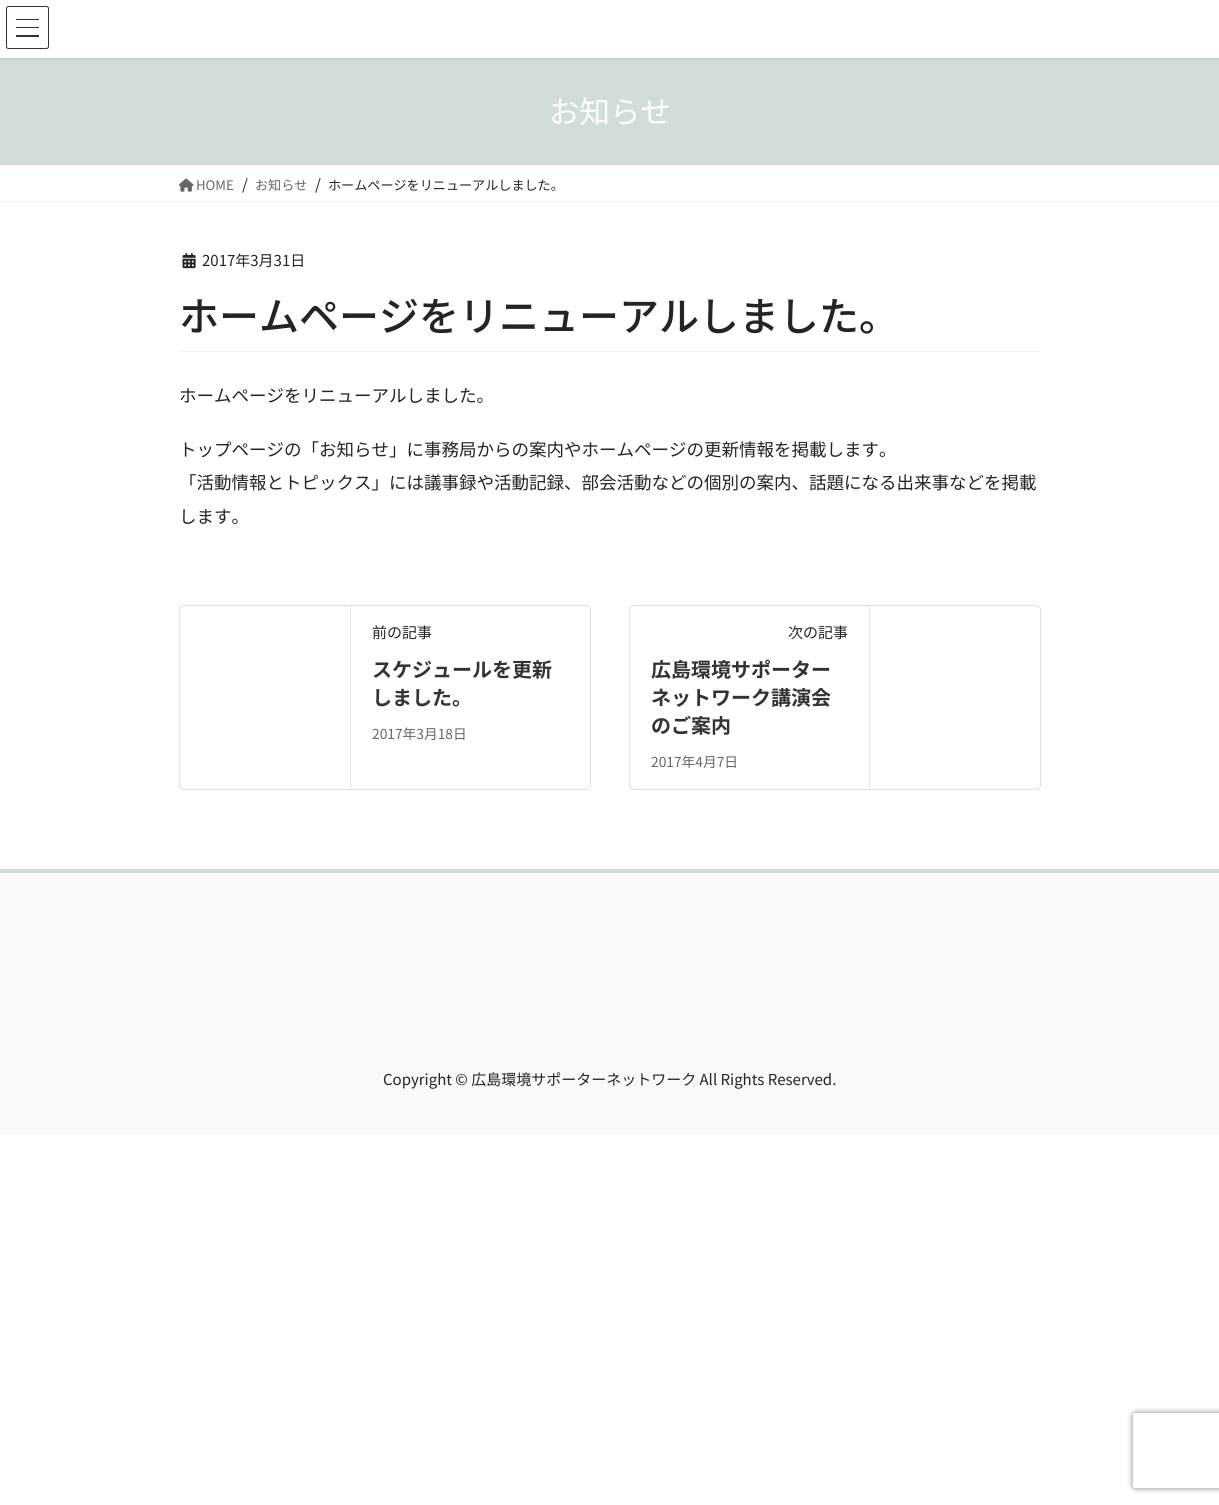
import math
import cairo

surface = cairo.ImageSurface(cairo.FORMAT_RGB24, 1219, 1505)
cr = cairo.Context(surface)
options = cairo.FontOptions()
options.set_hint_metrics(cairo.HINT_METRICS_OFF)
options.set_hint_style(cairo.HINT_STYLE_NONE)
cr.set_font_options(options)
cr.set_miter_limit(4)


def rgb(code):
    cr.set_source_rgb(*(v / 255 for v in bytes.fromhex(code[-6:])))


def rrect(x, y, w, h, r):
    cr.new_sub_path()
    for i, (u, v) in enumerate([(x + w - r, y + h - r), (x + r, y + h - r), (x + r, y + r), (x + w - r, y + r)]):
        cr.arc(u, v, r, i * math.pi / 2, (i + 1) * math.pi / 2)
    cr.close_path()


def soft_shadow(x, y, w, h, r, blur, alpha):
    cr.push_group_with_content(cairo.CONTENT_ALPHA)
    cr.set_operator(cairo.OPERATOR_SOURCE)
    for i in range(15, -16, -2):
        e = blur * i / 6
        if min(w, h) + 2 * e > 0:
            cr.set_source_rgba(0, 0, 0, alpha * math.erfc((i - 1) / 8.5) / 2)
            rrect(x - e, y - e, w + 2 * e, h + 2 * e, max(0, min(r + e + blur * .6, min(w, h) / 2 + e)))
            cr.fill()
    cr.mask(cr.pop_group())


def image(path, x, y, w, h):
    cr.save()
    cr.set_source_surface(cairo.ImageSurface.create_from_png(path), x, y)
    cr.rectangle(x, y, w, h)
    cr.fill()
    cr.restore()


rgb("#ffffff")
cr.paint()
rgb("#d0ddda")
cr.rectangle(0, 58, 1219, 107)
cr.fill()
rgb("#000000")
soft_shadow(0, 1, 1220, 58, 0, 2, 0.1)
for x, y, w, h, color in [
    (0, 0, 1219, 58, "#ffffff"),
    (16, 19, 23, 1, "#333333"),
    (16, 27, 23, 1, "#333333"),
    (16, 35, 23, 2, "#333333"),
]:
    rgb(color)
    cr.rectangle(x, y, w, h)
    cr.fill()
rrect(6.5, 6.5, 42, 42, 2)
cr.set_line_width(1)
cr.stroke()
rgb("#f2f2f2")
cr.rectangle(0, 201, 1219, 1)
cr.fill()
image("img/1.png", 178, 178, 16, 14)
cr.rectangle(179, 351, 862, 1)
cr.fill()
image("img/2.png", 182, 253, 14, 16)
rrect(179.5, 605.5, 411, 184, 4.5)
rgb("#dfdfdf")
cr.stroke()
rgb("#e5e5e5")
cr.rectangle(350, 606, 1, 183)
cr.fill()
rrect(629.5, 605.5, 411, 184, 4.5)
rgb("#dfdfdf")
cr.stroke()
for x, y, w, h, color in [
    (869, 606, 1, 183, "#e5e5e5"),
    (0, 873, 1219, 262, "#f9f9f9"),
    (0, 869, 1219, 4, "#d0ddda"),
]:
    rgb(color)
    cr.rectangle(x, y, w, h)
    cr.fill()
cr.save()
cr.set_fill_rule(cairo.FILL_RULE_EVEN_ODD)
cr.new_path()
cr.move_to(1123, 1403)
cr.line_to(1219, 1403)
cr.line_to(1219, 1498)
cr.line_to(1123, 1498)
cr.close_path()
cr.move_to(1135.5, 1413)
cr.line_to(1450.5, 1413)
cr.curve_to(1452, 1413, 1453, 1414, 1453, 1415.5)
cr.line_to(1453, 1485.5)
cr.curve_to(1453, 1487, 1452, 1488, 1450.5, 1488)
cr.line_to(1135.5, 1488)
cr.curve_to(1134, 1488, 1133, 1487, 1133, 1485.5)
cr.line_to(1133, 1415.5)
cr.curve_to(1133, 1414, 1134, 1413, 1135.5, 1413)
cr.close_path()
cr.clip()
rgb("#808080")
soft_shadow(1133, 1413, 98, 75, 2.5, 3, 1)
cr.restore()
cr.select_font_face("Noto Sans JP")
cr.set_font_size(30.5)
rgb("#ffffff")
cr.move_to(549, 123)
cr.show_text("お知らせ")
cr.set_font_size(13.1)
rgb("#666666")
cr.move_to(196, 190)
cr.show_text("HOME")
cr.set_font_size(15)
rgb("#212529")
cr.move_to(242, 190)
cr.show_text("/")
cr.set_font_size(13.1)
rgb("#666666")
cr.move_to(255, 190)
cr.show_text("お知らせ")
cr.set_font_size(15)
rgb("#212529")
cr.move_to(315, 190)
cr.show_text("/")
cr.set_font_size(13.1)
cr.move_to(328, 190)
cr.show_text("ホームページをリニューアルしました。")
cr.set_font_size(15)
cr.move_to(202, 266)
cr.show_text("2017年3月31日")
cr.select_font_face("Noto Sans JP Medium")
cr.set_font_size(40)
cr.move_to(179, 331)
cr.show_text("ホームページをリニューアルしました。")
cr.select_font_face("Noto Sans JP")
cr.set_font_size(17.5)
for x, y, s in [
    (179, 402, "ホームページをリニューアルしました。"),
    (179, 456, "トップページの「お知らせ」に事務局からの案内やホームページの更新情報を掲載します。"),
    (179, 489, "「活動情報とトピックス」には議事録や活動記録、部会活動などの個別の案内、話題になる出来事などを掲載"),
    (179, 523, "します。"),
]:
    cr.move_to(x, y)
    cr.show_text(s)
cr.set_font_size(15)
cr.move_to(372, 638)
cr.show_text("前の記事")
cr.select_font_face("Noto Sans JP", cairo.FONT_SLANT_NORMAL, cairo.FONT_WEIGHT_BOLD)
cr.set_font_size(20)
rgb("#333333")
cr.move_to(372, 677)
cr.show_text("スケジュールを更新")
cr.move_to(372, 705)
cr.show_text("しました。")
cr.select_font_face("Noto Sans JP")
cr.set_font_size(13.75)
rgb("#666666")
cr.move_to(372, 739)
cr.show_text("2017年3月18日")
cr.set_font_size(15)
rgb("#212529")
cr.move_to(788, 638)
cr.show_text("次の記事")
cr.select_font_face("Noto Sans JP", cairo.FONT_SLANT_NORMAL, cairo.FONT_WEIGHT_BOLD)
cr.set_font_size(20)
rgb("#333333")
for x, y, s in [
    (651, 677, "広島環境サポーター"),
    (651, 705, "ネットワーク講演会"),
    (651, 733, "のご案内"),
]:
    cr.move_to(x, y)
    cr.show_text(s)
cr.select_font_face("Noto Sans JP")
cr.set_font_size(13.75)
rgb("#666666")
cr.move_to(651, 767)
cr.show_text("2017年4月7日")
cr.set_font_size(15)
rgb("#212529")
cr.move_to(383, 1085)
cr.show_text("Copyright © 広島環境サポーターネットワーク All Rights Reserved.")
surface.write_to_png("page.png")
